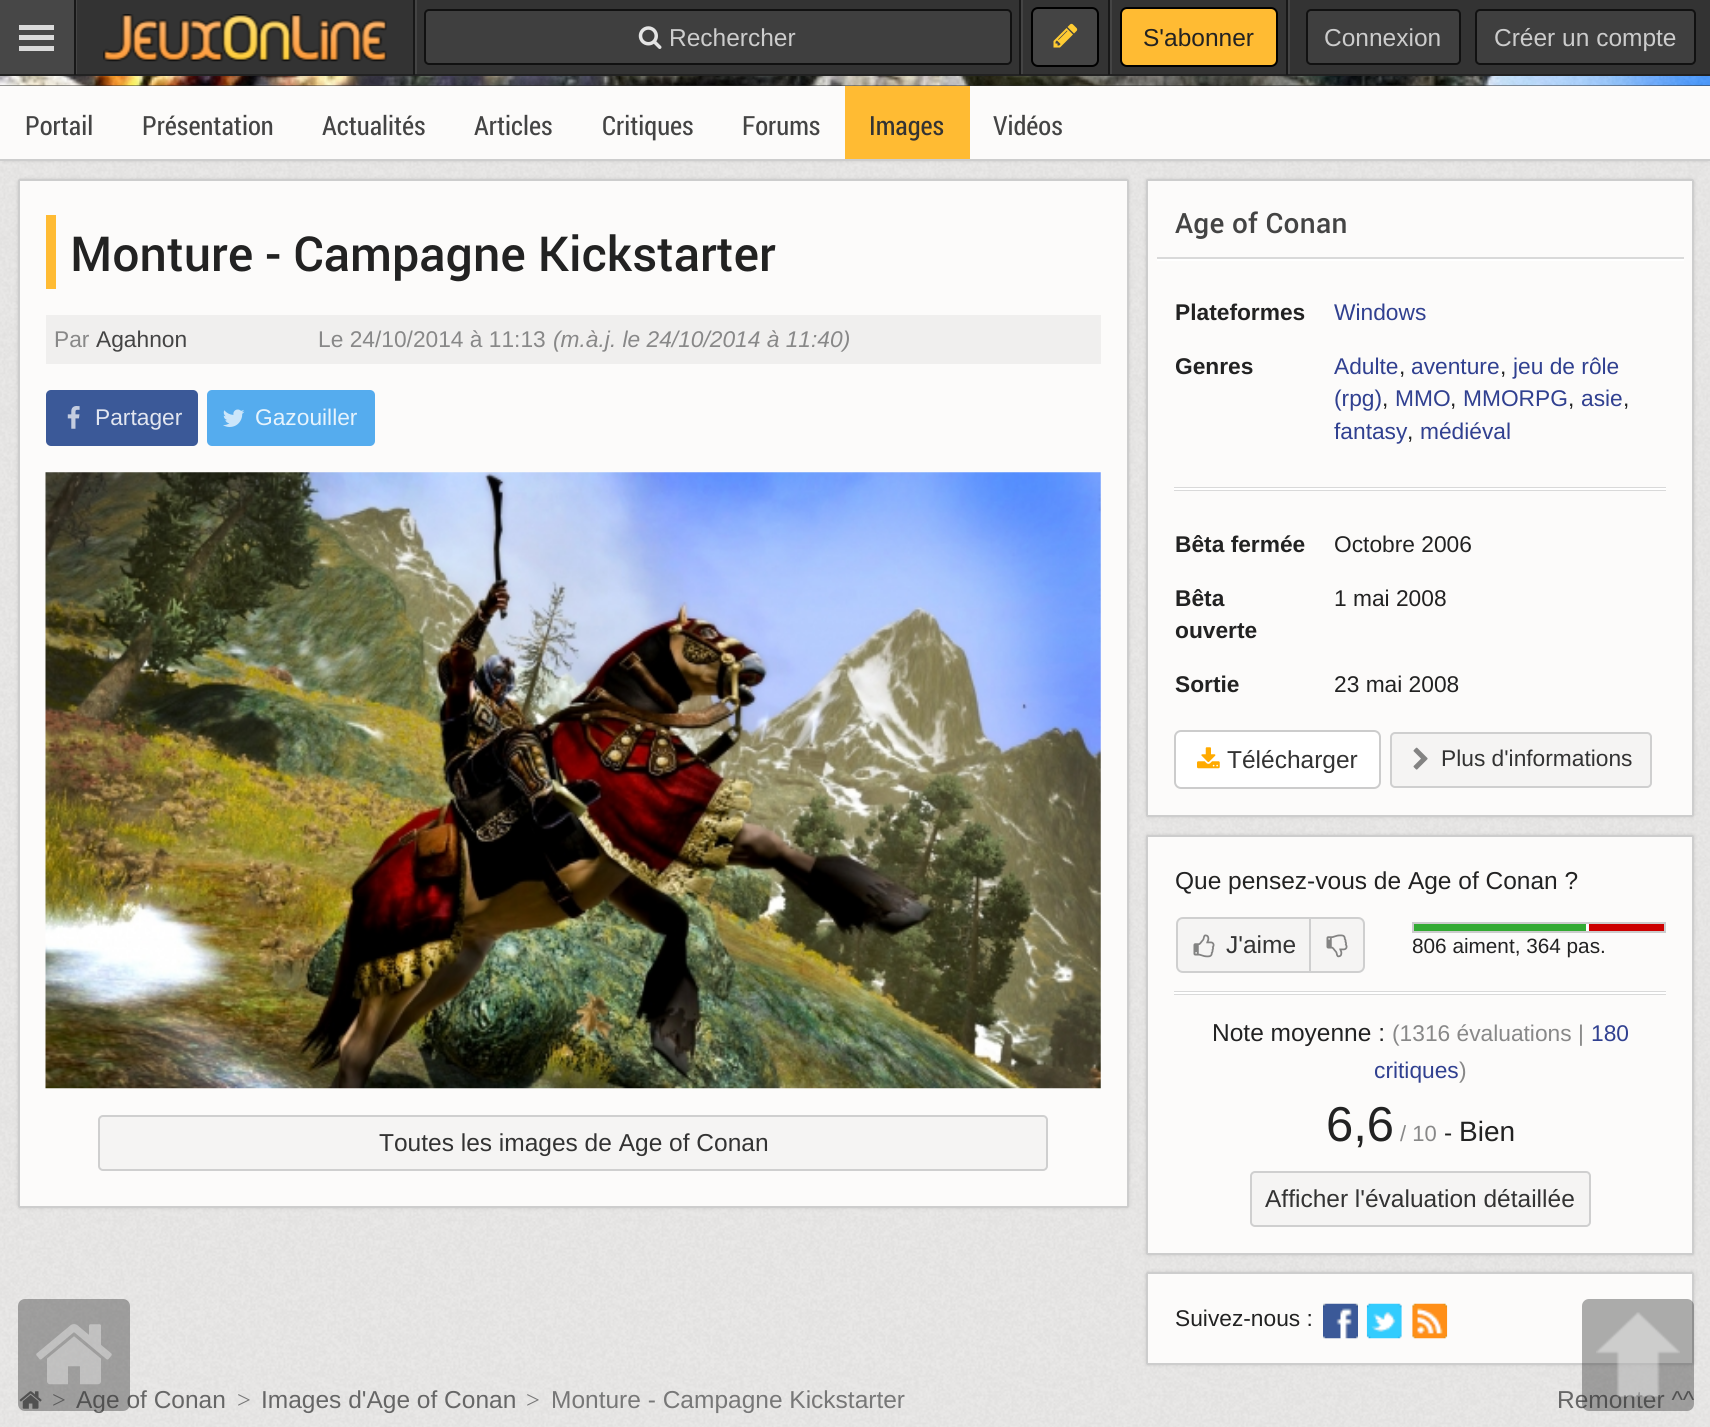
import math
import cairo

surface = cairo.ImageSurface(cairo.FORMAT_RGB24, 1710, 1427)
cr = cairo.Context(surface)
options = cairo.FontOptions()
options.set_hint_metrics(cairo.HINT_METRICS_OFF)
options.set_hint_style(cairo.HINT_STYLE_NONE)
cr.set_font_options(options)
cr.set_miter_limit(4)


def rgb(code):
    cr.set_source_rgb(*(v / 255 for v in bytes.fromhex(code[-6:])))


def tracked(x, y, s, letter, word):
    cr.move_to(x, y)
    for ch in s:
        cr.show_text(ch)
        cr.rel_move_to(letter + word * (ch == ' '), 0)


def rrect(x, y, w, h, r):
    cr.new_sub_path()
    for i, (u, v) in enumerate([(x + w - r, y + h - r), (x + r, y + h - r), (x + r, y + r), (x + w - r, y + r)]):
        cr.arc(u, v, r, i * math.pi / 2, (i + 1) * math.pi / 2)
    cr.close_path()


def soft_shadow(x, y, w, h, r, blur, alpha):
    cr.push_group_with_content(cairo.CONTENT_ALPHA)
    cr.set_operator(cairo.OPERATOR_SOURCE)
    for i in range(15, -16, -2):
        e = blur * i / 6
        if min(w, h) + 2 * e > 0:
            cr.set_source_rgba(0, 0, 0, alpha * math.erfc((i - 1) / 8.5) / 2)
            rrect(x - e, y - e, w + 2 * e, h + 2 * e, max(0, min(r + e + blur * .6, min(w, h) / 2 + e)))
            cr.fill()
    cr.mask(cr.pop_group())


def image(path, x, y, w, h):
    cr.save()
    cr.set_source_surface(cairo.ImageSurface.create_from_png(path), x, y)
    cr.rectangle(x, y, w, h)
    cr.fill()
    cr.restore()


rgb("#eae9e8")
cr.paint()
image("img/1.png", 0, 161, 1710, 1266)
for x, y, w, h, color in [
    (77, 0, 1633, 74, "#333333"),
    (76, 0, 1, 75, "#444444"),
    (415, 0, 2, 75, "#444444"),
    (1021, 0, 2, 75, "#444444"),
    (1110, 0, 2, 75, "#444444"),
    (1288, 0, 2, 75, "#444444"),
    (0, 74, 1710, 2, "#222222"),
    (0, 0, 74, 74, "#474747"),
    (19, 25, 35, 5, "#dadada"),
    (19, 35, 35, 5, "#dadada"),
    (19, 46, 35, 5, "#dadada"),
    (74, 0, 2, 75, "#181818"),
]:
    rgb(color)
    cr.rectangle(x, y, w, h)
    cr.fill()
image("img/2.png", 103, 14, 284, 48)
cr.rectangle(413, 0, 2, 75)
cr.fill()
rgb("#3f3f3f")
rrect(425, 10, 586, 54, 4)
cr.fill_preserve()
rgb("#111111")
cr.stroke()
image("img/3.png", 638, 26, 24, 23)
rgb("#181818")
cr.rectangle(1019, 0, 2, 75)
cr.fill()
rgb("#444444")
rrect(1032, 8, 66, 58, 6)
cr.fill_preserve()
rgb("#000000")
cr.stroke()
image("img/4.png", 1053, 23, 25, 25)
rgb("#181818")
cr.rectangle(1108, 0, 2, 75)
cr.fill()
rgb("#ffbb33")
rrect(1121, 8, 156, 58, 6)
cr.fill_preserve()
rgb("#000000")
cr.stroke()
rgb("#181818")
cr.rectangle(1286, 0, 2, 75)
cr.fill()
rgb("#3f3f3f")
rrect(1307, 10, 153, 54, 4)
cr.fill_preserve()
rgb("#111111")
cr.stroke()
rgb("#3f3f3f")
rrect(1476, 10, 219, 54, 4)
cr.fill_preserve()
rgb("#111111")
cr.stroke()
rgb("#333333")
cr.rectangle(0, 85, 1710, 1)
cr.fill()
image("img/5.png", 0, 76, 1710, 10)
image("img/6.png", 0, 76, 1710, 9)
rgb("#000000")
soft_shadow(4, 93, 1704, 68, 0, 2, 0.12)
for x, y, w, h, color in [
    (0, 86, 1710, 73, "#fcfbfa"),
    (0, 159, 1710, 2, "#cdcdcd"),
    (845, 86, 125, 73, "#ffbb33"),
]:
    rgb(color)
    cr.rectangle(x, y, w, h)
    cr.fill()
rgb("#000000")
soft_shadow(18, 179, 1111, 1029, 2, 2, 0.12)
rgb("#fcfbfa")
rrect(19, 180, 1109, 1027, 1)
cr.fill_preserve()
rgb("#cdcdcd")
cr.stroke()
rgb("#ffbb33")
cr.rectangle(46, 215, 10, 74)
cr.fill()
rgb("#f0efee")
cr.rectangle(46, 315, 1055, 49)
cr.fill()
rgb("#3b5998")
rrect(46, 390, 152, 56, 5)
cr.fill()
image("img/7.png", 67, 406, 13, 23)
rgb("#55acee")
rrect(207, 390, 168, 56, 5)
cr.fill()
image("img/8.png", 223, 409, 22, 18)
image("img/9.png", 45, 472, 1056, 617)
rgb("#f5f4f3")
rrect(99, 1116, 948, 54, 4)
cr.fill_preserve()
rgb("#cfcfcf")
cr.stroke()
rgb("#000000")
soft_shadow(1146, 179, 548, 638, 2, 2, 0.12)
rgb("#fcfbfa")
rrect(1147, 180, 546, 636, 1)
cr.fill_preserve()
rgb("#cdcdcd")
cr.stroke()
for x, y, w, h, color in [
    (1157, 257, 527, 2, "#d9d9d9"),
    (1157, 259, 527, 2, "#ffffff"),
    (1174, 487, 492, 4, "#d9d9d9"),
    (1174, 488, 492, 2, "#ffffff"),
]:
    rgb(color)
    cr.rectangle(x, y, w, h)
    cr.fill()
rrect(1175, 731, 205, 57, 6)
cr.fill_preserve()
rgb("#cccccc")
cr.stroke()
image("img/10.png", 1197, 747, 23, 22)
rgb("#f5f4f3")
rrect(1391, 733, 260, 54, 4)
cr.fill_preserve()
rgb("#cfcfcf")
cr.stroke()
image("img/11.png", 1413, 747, 15, 23)
rgb("#000000")
soft_shadow(1146, 835, 548, 420, 2, 2, 0.12)
rgb("#fcfbfa")
rrect(1147, 836, 546, 418, 1)
cr.fill_preserve()
rgb("#cdcdcd")
cr.stroke()
rgb("#f5f4f3")
cr.new_path()
cr.move_to(1183, 918)
cr.line_to(1310, 918)
cr.line_to(1310, 972)
cr.line_to(1183, 972)
cr.curve_to(1179.5, 972, 1177, 969.5, 1177, 966)
cr.line_to(1177, 924)
cr.curve_to(1177, 920.5, 1179.5, 918, 1183, 918)
cr.close_path()
cr.fill_preserve()
rgb("#cfcfcf")
cr.stroke()
image("img/12.png", 1193, 934, 22, 24)
rgb("#f5f4f3")
cr.new_path()
cr.move_to(1310, 918)
cr.line_to(1358, 918)
cr.curve_to(1361.5, 918, 1364, 920.5, 1364, 924)
cr.line_to(1364, 966)
cr.curve_to(1364, 969.5, 1361.5, 972, 1358, 972)
cr.line_to(1310, 972)
cr.close_path()
cr.fill_preserve()
rgb("#cfcfcf")
cr.stroke()
image("img/13.png", 1326, 934, 22, 24)
cr.rectangle(1413, 923, 252, 9)
rgb("#cccccc")
cr.stroke()
for x, y, w, h, color in [
    (1414, 924, 173, 7, "#33aa33"),
    (1586, 924, 2, 7, "#ffffff"),
    (1589, 924, 75, 7, "#cc0000"),
    (1174, 991, 492, 4, "#d9d9d9"),
    (1174, 992, 492, 2, "#ffffff"),
]:
    rgb(color)
    cr.rectangle(x, y, w, h)
    cr.fill()
rgb("#f5f4f3")
rrect(1251, 1172, 339, 54, 4)
cr.fill_preserve()
rgb("#cfcfcf")
cr.stroke()
rgb("#000000")
soft_shadow(1146, 1272, 548, 93, 2, 2, 0.12)
rgb("#fcfbfa")
rrect(1147, 1273, 546, 91, 1)
cr.fill_preserve()
rgb("#cdcdcd")
cr.stroke()
image("img/14.png", 1323, 1303, 35, 36)
image("img/15.png", 1366, 1303, 36, 36)
image("img/16.png", 1412, 1303, 36, 36)
image("img/17.png", 19, 1391, 23, 18)
cr.select_font_face("Liberation Sans")
cr.set_font_size(24.5)
rgb("#cccccc")
cr.move_to(669, 46)
cr.show_text("Rechercher")
rgb("#222222")
cr.move_to(1143, 46)
cr.show_text("S'abonner")
rgb("#cccccc")
cr.move_to(1324, 46)
cr.show_text("Connexion")
cr.move_to(1494, 46)
cr.show_text("Créer un compte")
cr.select_font_face("Roboto Condensed")
cr.set_font_size(26.5)
rgb("#444444")
for x, y, s in [
    (25, 135, "Portail"),
    (142, 135, "Présentation"),
    (322, 135, "Actualités"),
    (474, 135, "Articles"),
    (602, 135, "Critiques"),
    (742, 135, "Forums"),
]:
    cr.move_to(x, y)
    cr.show_text(s)
rgb("#333333")
cr.move_to(869, 135)
cr.show_text("Images")
rgb("#444444")
cr.move_to(993, 135)
cr.show_text("Vidéos")
cr.select_font_face("Roboto Medium")
cr.set_font_size(48.25)
rgb("#222222")
cr.move_to(70, 271)
cr.show_text("Monture - Campagne Kickstarter")
cr.select_font_face("Liberation Sans")
cr.set_font_size(22.75)
rgb("#888888")
cr.move_to(54, 347)
cr.show_text("Par")
rgb("#444444")
cr.move_to(96, 347)
cr.show_text("Agahnon")
rgb("#888888")
cr.move_to(318, 347)
cr.show_text("Le 24/10/2014 à 11:13")
cr.select_font_face("Liberation Sans", cairo.FONT_SLANT_ITALIC)
cr.move_to(553, 347)
cr.show_text("(m.à.j. le 24/10/2014 à 11:40)")
cr.select_font_face("Liberation Sans")
rgb("#e2e6f0")
cr.move_to(95, 425)
cr.show_text("Partager")
rgb("#e6f3fc")
cr.move_to(255, 425)
cr.show_text("Gazouiller")
cr.set_font_size(24.5)
rgb("#333333")
cr.move_to(379, 1151)
cr.show_text("Toutes les images de Age of Conan")
cr.select_font_face("Roboto Medium")
cr.set_font_size(28)
rgb("#444444")
tracked(1175, 233, "Age of Conan", 0.3, 0)
cr.select_font_face("Liberation Sans", cairo.FONT_SLANT_NORMAL, cairo.FONT_WEIGHT_BOLD)
cr.set_font_size(22.75)
rgb("#222222")
cr.move_to(1175, 320)
cr.show_text("Plateformes")
cr.select_font_face("Liberation Sans")
rgb("#304090")
cr.move_to(1334, 320)
cr.show_text("Windows")
cr.select_font_face("Liberation Sans", cairo.FONT_SLANT_NORMAL, cairo.FONT_WEIGHT_BOLD)
rgb("#222222")
cr.move_to(1175, 374)
cr.show_text("Genres")
cr.select_font_face("Liberation Sans")
rgb("#304090")
cr.move_to(1334, 374)
cr.show_text("Adulte")
rgb("#222222")
cr.move_to(1399, 374)
cr.show_text(",")
rgb("#304090")
cr.move_to(1411, 374)
cr.show_text("aventure")
rgb("#222222")
cr.move_to(1500, 374)
cr.show_text(",")
rgb("#304090")
cr.move_to(1513, 374)
cr.show_text("jeu de rôle")
cr.move_to(1334, 406)
cr.show_text("(rpg)")
rgb("#222222")
cr.move_to(1382, 406)
cr.show_text(",")
rgb("#304090")
cr.move_to(1395, 406)
cr.show_text("MMO")
rgb("#222222")
cr.move_to(1450, 406)
cr.show_text(",")
rgb("#304090")
cr.move_to(1463, 406)
cr.show_text("MMORPG")
rgb("#222222")
cr.move_to(1568, 406)
cr.show_text(",")
rgb("#304090")
cr.move_to(1581, 406)
cr.show_text("asie")
rgb("#222222")
cr.move_to(1623, 406)
cr.show_text(",")
rgb("#304090")
cr.move_to(1334, 439)
cr.show_text("fantasy")
rgb("#222222")
cr.move_to(1407, 439)
cr.show_text(",")
rgb("#304090")
cr.move_to(1420, 439)
cr.show_text("médiéval")
cr.select_font_face("Liberation Sans", cairo.FONT_SLANT_NORMAL, cairo.FONT_WEIGHT_BOLD)
rgb("#222222")
cr.move_to(1175, 552)
cr.show_text("Bêta fermée")
cr.select_font_face("Liberation Sans")
cr.move_to(1334, 552)
cr.show_text("Octobre 2006")
cr.select_font_face("Liberation Sans", cairo.FONT_SLANT_NORMAL, cairo.FONT_WEIGHT_BOLD)
cr.move_to(1175, 606)
cr.show_text("Bêta")
cr.move_to(1175, 638)
cr.show_text("ouverte")
cr.select_font_face("Liberation Sans")
cr.move_to(1334, 606)
cr.show_text("1 mai 2008")
cr.select_font_face("Liberation Sans", cairo.FONT_SLANT_NORMAL, cairo.FONT_WEIGHT_BOLD)
cr.move_to(1175, 692)
cr.show_text("Sortie")
cr.select_font_face("Liberation Sans")
cr.move_to(1334, 692)
cr.show_text("23 mai 2008")
cr.set_font_size(24.5)
rgb("#333333")
cr.move_to(1227, 768)
cr.show_text("Télécharger")
cr.set_font_size(22.75)
cr.move_to(1441, 766)
cr.show_text("Plus d'informations")
cr.set_font_size(24.5)
rgb("#222222")
cr.move_to(1175, 889)
cr.show_text("Que pensez-vous de Age of Conan ?")
rgb("#333333")
cr.move_to(1226, 953)
cr.show_text("J'aime")
cr.set_font_size(20.75)
rgb("#222222")
cr.move_to(1412, 953)
cr.show_text("806 aiment, 364 pas.")
cr.set_font_size(24.5)
cr.move_to(1212, 1041)
cr.show_text("Note moyenne :")
cr.set_font_size(22.75)
rgb("#888888")
cr.move_to(1392, 1041)
cr.show_text("(1316 évaluations |")
rgb("#304090")
cr.move_to(1591, 1041)
cr.show_text("180")
cr.move_to(1374, 1078)
cr.show_text("critiques")
rgb("#888888")
cr.move_to(1459, 1078)
cr.show_text(")")
cr.set_font_size(49)
rgb("#222222")
cr.move_to(1326, 1141)
cr.show_text("6,6")
cr.set_font_size(22)
rgb("#888888")
cr.move_to(1400, 1141)
cr.show_text("/ 10")
cr.set_font_size(24.5)
rgb("#222222")
cr.move_to(1444, 1141)
cr.show_text("-")
cr.set_font_size(28)
cr.move_to(1459, 1141)
cr.show_text("Bien")
cr.set_font_size(24.5)
rgb("#333333")
cr.move_to(1265, 1207)
cr.show_text("Afficher l'évaluation détaillée")
cr.set_font_size(22.75)
rgb("#222222")
cr.move_to(1175, 1326)
cr.show_text("Suivez-nous :")
cr.select_font_face("Liberation Serif")
cr.set_font_size(24.5)
rgb("#777777")
cr.move_to(52, 1408)
cr.show_text(">")
cr.select_font_face("Liberation Sans")
rgb("#666666")
cr.move_to(76, 1408)
cr.show_text("Age of Conan")
cr.select_font_face("Liberation Serif")
rgb("#777777")
cr.move_to(237, 1408)
cr.show_text(">")
cr.select_font_face("Liberation Sans")
rgb("#666666")
cr.move_to(261, 1408)
cr.show_text("Images d'Age of Conan")
cr.select_font_face("Liberation Serif")
rgb("#777777")
cr.move_to(526, 1408)
cr.show_text(">")
cr.select_font_face("Liberation Sans")
cr.move_to(551, 1408)
cr.show_text("Monture - Campagne Kickstarter")
rgb("#666666")
cr.move_to(1557, 1408)
cr.show_text("Remonter ^^")
cr.set_source_rgba(0.2, 0.2, 0.2, 0.4)
rrect(18, 1299, 112, 112, 7)
cr.fill()
image("img/18.png", 36, 1324, 76, 61)
rrect(1582, 1299, 112, 112, 7)
cr.fill()
image("img/19.png", 1596, 1312, 84, 85)
surface.write_to_png("page.png")
